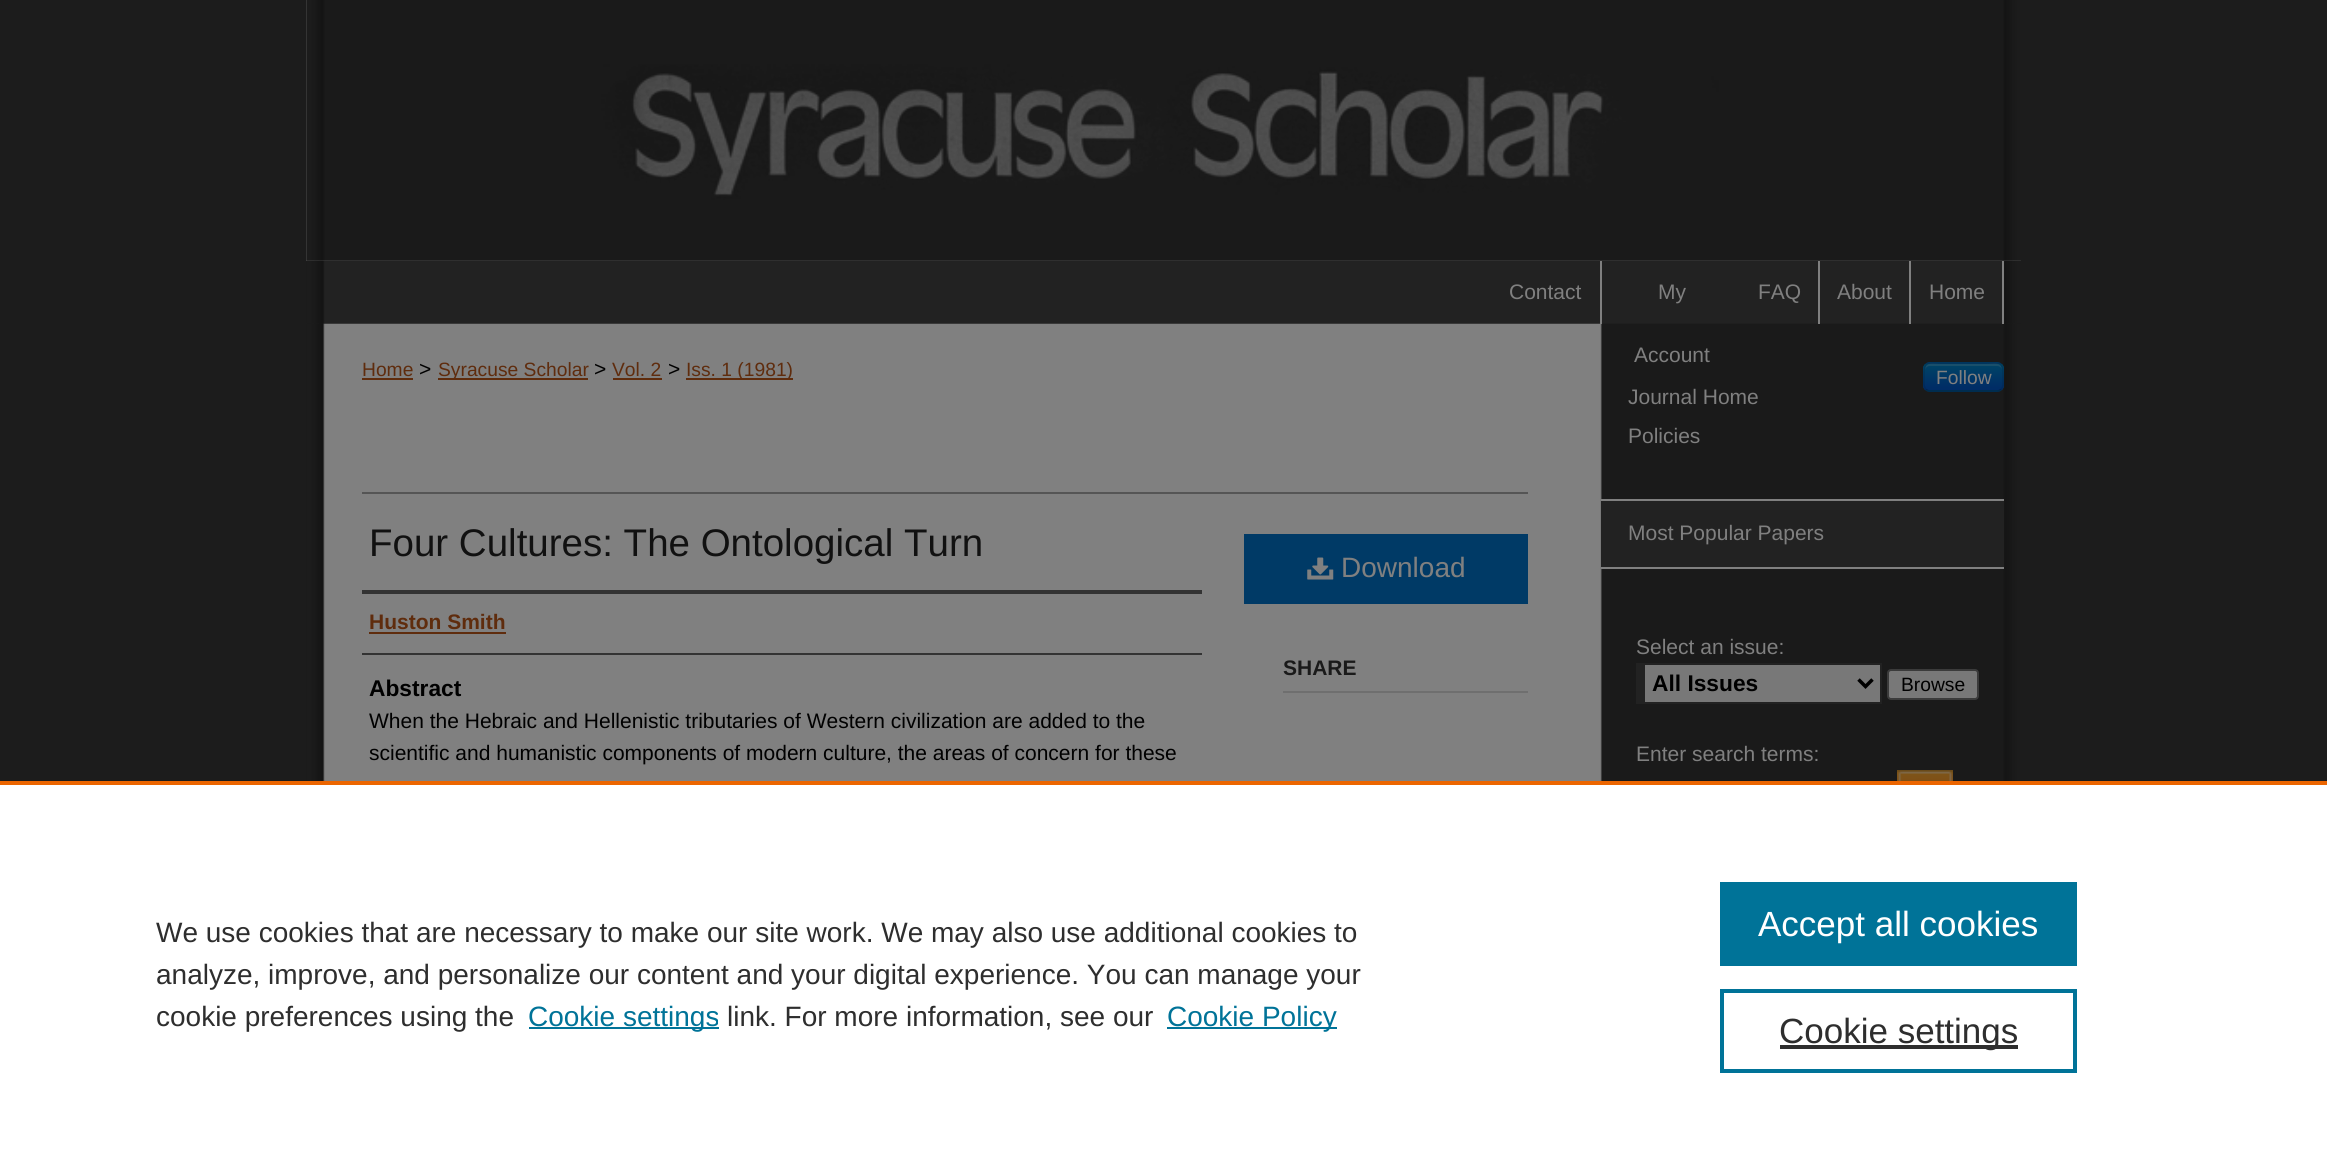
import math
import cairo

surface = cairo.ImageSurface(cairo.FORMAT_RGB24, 2327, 1165)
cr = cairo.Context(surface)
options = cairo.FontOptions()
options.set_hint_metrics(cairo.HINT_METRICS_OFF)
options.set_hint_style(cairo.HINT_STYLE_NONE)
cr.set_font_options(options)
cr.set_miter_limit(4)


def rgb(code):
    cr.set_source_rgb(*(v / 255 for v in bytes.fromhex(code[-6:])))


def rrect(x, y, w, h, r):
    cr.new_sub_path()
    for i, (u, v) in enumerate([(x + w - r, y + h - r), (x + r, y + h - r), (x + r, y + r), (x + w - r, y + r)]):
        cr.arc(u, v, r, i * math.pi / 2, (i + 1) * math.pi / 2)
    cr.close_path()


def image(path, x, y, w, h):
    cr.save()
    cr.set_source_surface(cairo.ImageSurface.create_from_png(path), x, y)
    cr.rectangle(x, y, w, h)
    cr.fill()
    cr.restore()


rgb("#1c1c1c")
cr.paint()
rgb("#808080")
cr.rectangle(306, 0, 1715, 261)
cr.fill()
image("img/1.png", 306, 0, 1715, 261)
image("img/2.png", 306, 260, 1715, 64)
image("img/3.png", 306, 323, 1715, 458)
for x, y, w, h, color in [
    (1600, 261, 2, 63, "#808080"),
    (1818, 261, 2, 63, "#808080"),
    (1909, 261, 2, 63, "#808080"),
    (2002, 261, 2, 63, "#808080"),
    (362, 378, 51, 2, "#5f2c0d"),
    (438, 378, 150, 2, "#5f2c0d"),
    (613, 378, 49, 2, "#5f2c0d"),
    (686, 378, 107, 2, "#5f2c0d"),
    (362, 492, 1166, 2, "#555555"),
    (362, 590, 840, 4, "#333333"),
    (362, 653, 840, 2, "#333333"),
    (369, 632, 137, 2, "#5f2c0d"),
    (1244, 534, 284, 70, "#003a66"),
]:
    rgb(color)
    cr.rectangle(x, y, w, h)
    cr.fill()
image("img/4.png", 1307, 557, 27, 23)
rgb("#6f6f6f")
cr.rectangle(1283, 691, 245, 2)
cr.fill()
rgb("#003a66")
rrect(1923, 362, 81, 30, 7)
cr.fill()
cr.save()
rrect(1923, 362, 81, 30, 7)
cr.clip()
gradient = cairo.LinearGradient(1964, 364, 1964, 390)
gradient.add_color_stop_rgba(0, 0, 0.267, 0.4, 1)
gradient.add_color_stop_rgba(1, 0, 0.169, 0.4, 1)
cr.set_source(gradient)
cr.rectangle(1923, 364, 81, 26)
cr.fill()
cr.restore()
cr.set_source_rgba(0.502, 0.502, 0.502, 0.2)
cr.new_path()
cr.move_to(1930, 366)
cr.line_to(1997, 366)
cr.curve_to(2000, 366, 2002, 368, 2002, 371)
cr.curve_to(2002, 361, 1994, 364, 1986, 364)
cr.line_to(1941, 364)
cr.curve_to(1933, 364, 1925, 361, 1925, 371)
cr.curve_to(1925, 368, 1927, 366, 1930, 366)
cr.close_path()
cr.fill()
cr.new_path()
cr.move_to(2001, 389.5)
cr.curve_to(2000, 390.5, 1998.5, 391, 1997, 391)
cr.line_to(1930, 391)
cr.curve_to(1928.5, 391, 1927, 390.5, 1926, 389.5)
cr.set_source_rgba(0, 0, 0, 0.25)
cr.set_line_width(1.8)
cr.stroke()
cr.new_path()
cr.move_to(1926, 389.5)
cr.curve_to(1923, 386.5, 1924, 381, 1924, 377)
cr.curve_to(1924, 361.5, 1925, 363, 1941.5, 363)
cr.line_to(1985.5, 363)
cr.curve_to(2002, 363, 2003, 361.5, 2003, 377)
cr.curve_to(2003, 381, 2004, 386.5, 2001, 389.5)
cr.set_source_rgba(0, 0, 0, 0.1)
cr.stroke()
for x, y, w, h, color in [
    (1601, 499, 403, 2, "#808080"),
    (1601, 501, 403, 66, "#222222"),
    (1601, 567, 403, 2, "#808080"),
    (1645, 665, 235, 37, "#787878"),
    (1645, 663, 236, 2, "#222222"),
    (1880, 663, 2, 41, "#222222"),
    (1645, 702, 236, 2, "#222222"),
    (1636, 663, 9, 41, "#222222"),
]:
    rgb(color)
    cr.rectangle(x, y, w, h)
    cr.fill()
cr.new_path()
cr.move_to(1858.5, 679.5)
cr.line_to(1865.5, 686.5)
cr.line_to(1872.5, 679.5)
rgb("#000000")
cr.set_line_width(3.5)
cr.stroke()
rgb("#787878")
rrect(1888, 670, 90, 29, 3)
cr.fill_preserve()
rgb("#3b3b3b")
cr.set_line_width(2)
cr.stroke()
image("img/5.png", 1897, 770, 56, 11)
for x, y, w, h, color in [
    (0, 785, 2327, 380, "#ffffff"),
    (0, 781, 2327, 4, "#eb6500"),
    (529, 1027, 190, 2, "#007398"),
    (1167, 1027, 170, 2, "#007398"),
    (1720, 882, 357, 84, "#007398"),
]:
    rgb(color)
    cr.rectangle(x, y, w, h)
    cr.fill()
cr.rectangle(1722, 991, 353, 80)
cr.set_line_width(4)
cr.stroke()
rgb("#2e2e2e")
cr.rectangle(1780, 1045, 238, 4)
cr.fill()
cr.select_font_face("Liberation Sans")
cr.set_font_size(21)
rgb("#808080")
for x, y, s in [
    (1509, 299, "Contact"),
    (1658, 299, "My"),
    (1634, 362, "Account"),
    (1758, 299, "FAQ"),
    (1837, 299, "About"),
    (1929, 299, "Home"),
]:
    cr.move_to(x, y)
    cr.show_text(s)
cr.set_font_size(19.25)
rgb("#5f2c0d")
cr.move_to(362, 376)
cr.show_text("Home")
cr.set_font_size(21)
rgb("#000000")
cr.move_to(419, 376)
cr.show_text(">")
cr.set_font_size(19.25)
rgb("#5f2c0d")
cr.move_to(438, 376)
cr.show_text("Syracuse Scholar")
cr.set_font_size(21)
rgb("#000000")
cr.move_to(594, 376)
cr.show_text(">")
cr.set_font_size(19.25)
rgb("#5f2c0d")
cr.move_to(612, 376)
cr.show_text("Vol. 2")
cr.set_font_size(21)
rgb("#000000")
cr.move_to(668, 376)
cr.show_text(">")
cr.set_font_size(19.25)
rgb("#5f2c0d")
cr.move_to(686, 376)
cr.show_text("Iss. 1 (1981)")
cr.set_font_size(38.5)
rgb("#111111")
cr.move_to(369, 556)
cr.show_text("Four Cultures: The Ontological Turn")
cr.select_font_face("Liberation Sans", cairo.FONT_SLANT_NORMAL, cairo.FONT_WEIGHT_BOLD)
cr.set_font_size(21)
rgb("#5f2c0d")
cr.move_to(369, 629)
cr.show_text("Huston Smith")
cr.set_font_size(22.75)
rgb("#000000")
cr.move_to(369, 696)
cr.show_text("Abstract")
cr.select_font_face("Liberation Sans")
cr.set_font_size(21)
cr.move_to(369, 728)
cr.show_text("When the Hebraic and Hellenistic tributaries of Western civilization are added to the")
cr.move_to(369, 760)
cr.show_text("scientific and humanistic components of modern culture, the areas of concern for these")
cr.set_font_size(28)
rgb("#808080")
cr.move_to(1341, 577)
cr.show_text("Download")
cr.select_font_face("Liberation Sans", cairo.FONT_SLANT_NORMAL, cairo.FONT_WEIGHT_BOLD)
cr.set_font_size(21)
rgb("#1a1a1a")
cr.move_to(1283, 675)
cr.show_text("SHARE")
cr.select_font_face("Liberation Sans")
cr.set_font_size(19.25)
rgb("#808080")
cr.move_to(1936, 384)
cr.show_text("Follow")
cr.set_font_size(21)
for x, y, s in [
    (1628, 404, "Journal Home"),
    (1628, 443, "Policies"),
    (1628, 540, "Most Popular Papers"),
    (1636, 654, "Select an issue:"),
]:
    cr.move_to(x, y)
    cr.show_text(s)
cr.select_font_face("Liberation Sans", cairo.FONT_SLANT_NORMAL, cairo.FONT_WEIGHT_BOLD)
cr.set_font_size(22.75)
rgb("#000000")
cr.move_to(1652, 691)
cr.show_text("All Issues")
cr.select_font_face("Liberation Sans")
cr.set_font_size(19.25)
cr.move_to(1901, 691)
cr.show_text("Browse")
cr.set_font_size(21)
rgb("#808080")
cr.move_to(1636, 761)
cr.show_text("Enter search terms:")
cr.set_font_size(28)
rgb("#2e2e2e")
for x, y, s in [
    (156, 942, "We use cookies that are necessary to make our site work. We may also use additional cookies to"),
    (156, 984, "analyze, improve, and personalize our content and your digital experience. You can manage your"),
    (156, 1026, "cookie preferences using the"),
]:
    cr.move_to(x, y)
    cr.show_text(s)
rgb("#007398")
cr.move_to(528, 1026)
cr.show_text("Cookie settings")
rgb("#2e2e2e")
cr.move_to(727, 1026)
cr.show_text("link. For more information, see our")
rgb("#007398")
cr.move_to(1167, 1026)
cr.show_text("Cookie Policy")
cr.set_font_size(35)
rgb("#ffffff")
cr.move_to(1758, 936)
cr.show_text("Accept all cookies")
rgb("#2e2e2e")
cr.move_to(1779, 1043)
cr.show_text("Cookie settings")
surface.write_to_png("page.png")
